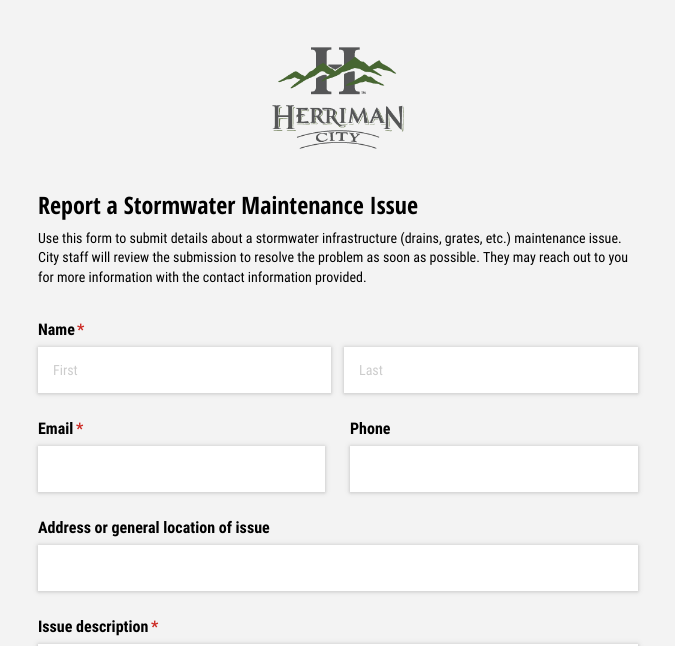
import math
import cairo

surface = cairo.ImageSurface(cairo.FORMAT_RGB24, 675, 646)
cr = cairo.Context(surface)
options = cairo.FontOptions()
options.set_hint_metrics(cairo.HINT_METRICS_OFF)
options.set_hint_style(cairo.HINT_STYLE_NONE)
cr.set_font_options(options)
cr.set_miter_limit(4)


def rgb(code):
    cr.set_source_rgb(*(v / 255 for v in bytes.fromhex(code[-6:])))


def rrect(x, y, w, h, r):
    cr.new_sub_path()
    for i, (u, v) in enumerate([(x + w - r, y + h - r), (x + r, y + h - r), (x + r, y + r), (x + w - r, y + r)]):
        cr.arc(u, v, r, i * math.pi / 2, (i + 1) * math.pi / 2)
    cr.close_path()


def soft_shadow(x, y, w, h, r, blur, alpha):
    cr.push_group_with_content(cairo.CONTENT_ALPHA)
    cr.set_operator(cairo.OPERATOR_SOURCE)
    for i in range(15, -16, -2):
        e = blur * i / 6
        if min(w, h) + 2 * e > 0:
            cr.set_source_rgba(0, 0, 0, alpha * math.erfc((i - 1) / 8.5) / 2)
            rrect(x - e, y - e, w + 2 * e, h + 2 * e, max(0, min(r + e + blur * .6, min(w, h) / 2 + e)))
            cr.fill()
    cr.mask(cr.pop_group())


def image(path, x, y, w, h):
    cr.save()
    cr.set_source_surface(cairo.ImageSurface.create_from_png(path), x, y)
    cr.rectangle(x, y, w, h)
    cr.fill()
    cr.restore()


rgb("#f3f3f3")
cr.paint()
image("img/1.png", 272, 47, 132, 102)
rgb("#000000")
soft_shadow(38, 348, 293, 46, 0, 1.5, 0.1)
rgb("#bfbfbf")
soft_shadow(38, 347, 293, 46, 0, 2.5, 0.7)
rgb("#ffffff")
cr.rectangle(38, 347, 293, 46)
cr.fill()
rgb("#000000")
soft_shadow(344, 348, 294, 46, 0, 1.5, 0.1)
rgb("#bfbfbf")
soft_shadow(344, 347, 294, 46, 0, 2.5, 0.7)
rgb("#ffffff")
cr.rectangle(344, 347, 294, 46)
cr.fill()
rgb("#000000")
soft_shadow(38, 447, 287, 46, 0, 1.5, 0.1)
rgb("#bfbfbf")
soft_shadow(38, 446, 287, 46, 0, 2.5, 0.7)
rgb("#ffffff")
cr.rectangle(38, 446, 287, 46)
cr.fill()
rgb("#000000")
soft_shadow(350, 447, 288, 46, 0, 1.5, 0.1)
rgb("#bfbfbf")
soft_shadow(350, 446, 288, 46, 0, 2.5, 0.7)
rgb("#ffffff")
cr.rectangle(350, 446, 288, 46)
cr.fill()
rgb("#000000")
soft_shadow(38, 546, 600, 46, 0, 1.5, 0.1)
rgb("#bfbfbf")
soft_shadow(38, 545, 600, 46, 0, 2.5, 0.7)
rgb("#ffffff")
cr.rectangle(38, 545, 600, 46)
cr.fill()
rgb("#000000")
soft_shadow(38, 645, 600, 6, 0, 1.5, 0.1)
rgb("#bfbfbf")
soft_shadow(38, 644, 600, 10, 0, 2.5, 0.7)
rgb("#ffffff")
cr.rectangle(38, 644, 600, 2)
cr.fill()
cr.select_font_face("Open Sans Condensed", cairo.FONT_SLANT_NORMAL, cairo.FONT_WEIGHT_BOLD)
cr.set_font_size(24)
rgb("#000000")
cr.move_to(38, 214)
cr.show_text("Report a Stormwater Maintenance Issue")
cr.select_font_face("Roboto Condensed")
cr.set_font_size(14)
for x, y, s in [
    (38, 243, "Use this form to submit details about a stormwater infrastructure (drains, grates, etc.) maintenance issue."),
    (38, 262, "City staff will review the submission to resolve the problem as soon as possible. They may reach out to you"),
    (38, 282, "for more information with the contact information provided."),
]:
    cr.move_to(x, y)
    cr.show_text(s)
cr.select_font_face("Roboto Condensed", cairo.FONT_SLANT_NORMAL, cairo.FONT_WEIGHT_BOLD)
cr.set_font_size(16)
cr.move_to(38, 335)
cr.show_text("Name")
rgb("#cc2a24")
cr.move_to(77, 335)
cr.show_text("*")
cr.select_font_face("Roboto Condensed")
cr.set_font_size(14)
rgb("#cccccc")
cr.move_to(53, 375)
cr.show_text("First")
cr.move_to(359, 375)
cr.show_text("Last")
cr.select_font_face("Roboto Condensed", cairo.FONT_SLANT_NORMAL, cairo.FONT_WEIGHT_BOLD)
cr.set_font_size(16)
rgb("#000000")
cr.move_to(38, 434)
cr.show_text("Email")
rgb("#cc2a24")
cr.move_to(76, 434)
cr.show_text("*")
rgb("#000000")
for x, y, s in [
    (350, 434, "Phone"),
    (38, 533, "Address or general location of issue"),
    (38, 632, "Issue description"),
]:
    cr.move_to(x, y)
    cr.show_text(s)
rgb("#cc2a24")
cr.move_to(151, 632)
cr.show_text("*")
surface.write_to_png("page.png")
